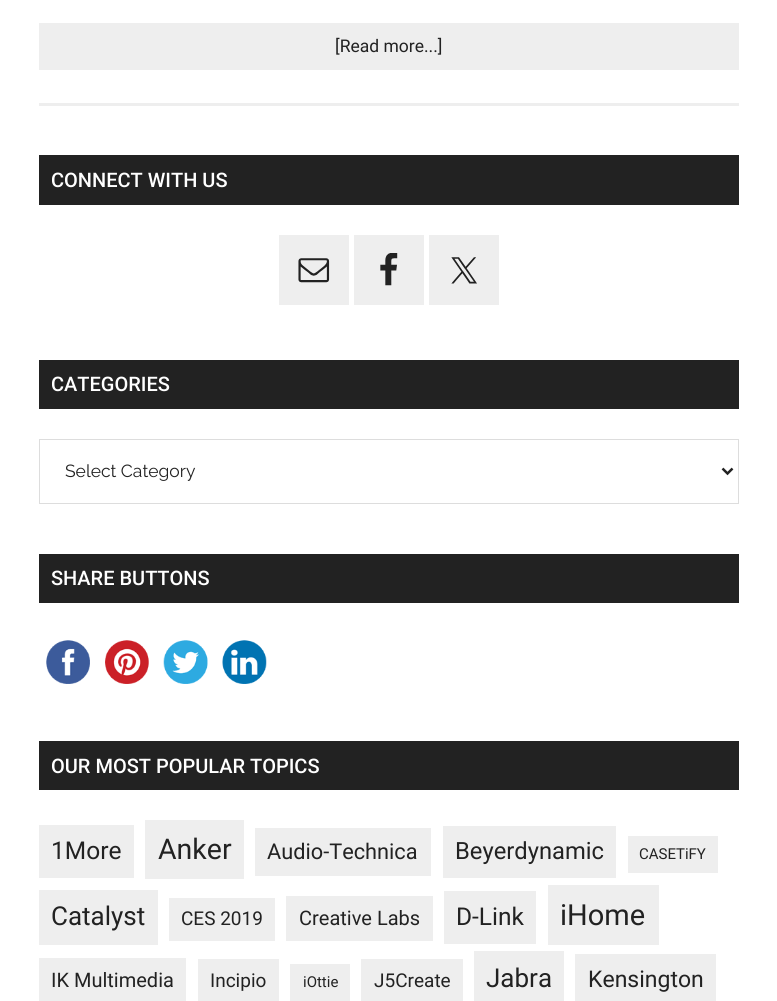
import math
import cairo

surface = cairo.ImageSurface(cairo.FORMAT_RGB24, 777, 1001)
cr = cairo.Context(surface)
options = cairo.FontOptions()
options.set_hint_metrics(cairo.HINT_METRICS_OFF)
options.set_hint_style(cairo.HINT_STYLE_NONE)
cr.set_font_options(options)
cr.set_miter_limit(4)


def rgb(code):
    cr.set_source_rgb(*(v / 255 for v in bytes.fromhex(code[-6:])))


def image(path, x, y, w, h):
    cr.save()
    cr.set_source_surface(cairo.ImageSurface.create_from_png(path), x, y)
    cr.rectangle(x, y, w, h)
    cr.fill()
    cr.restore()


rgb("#ffffff")
cr.paint()
for x, y, w, h, color in [
    (39, 103, 700, 3, "#eeeeee"),
    (39, 23, 700, 47, "#eeeeee"),
    (39, 155, 700, 50, "#222222"),
    (279, 235, 70, 70, "#eeeeee"),
]:
    rgb(color)
    cr.rectangle(x, y, w, h)
    cr.fill()
image("img/1.png", 298, 258, 32, 25)
cr.rectangle(354, 235, 70, 70)
cr.fill()
image("img/2.png", 380, 253, 18, 33)
cr.rectangle(429, 235, 70, 70)
cr.fill()
image("img/3.png", 451, 257, 26, 27)
rgb("#222222")
cr.rectangle(39, 360, 700, 49)
cr.fill()
cr.rectangle(39.5, 439.5, 699, 64)
rgb("#dddddd")
cr.set_line_width(1)
cr.stroke()
cr.new_path()
cr.move_to(722.5, 468.5)
cr.line_to(727.5, 473.5)
cr.line_to(732.5, 468.5)
rgb("#222222")
cr.set_line_width(2.5)
cr.stroke()
cr.rectangle(39, 554, 700, 49)
cr.fill()
image("img/4.png", 46, 640, 44, 44)
image("img/5.png", 105, 640, 44, 44)
image("img/6.png", 163, 640, 45, 44)
image("img/7.png", 222, 640, 45, 44)
for x, y, w, h, color in [
    (39, 741, 700, 49, "#222222"),
    (39, 825, 95, 53, "#eeeeee"),
    (145, 820, 99, 59, "#eeeeee"),
    (255, 828, 176, 48, "#eeeeee"),
    (443, 826, 173, 52, "#eeeeee"),
    (628, 836, 90, 37, "#eeeeee"),
    (39, 890, 119, 55, "#eeeeee"),
    (169, 898, 106, 43, "#eeeeee"),
    (286, 896, 147, 45, "#eeeeee"),
    (444, 891, 92, 53, "#eeeeee"),
    (548, 885, 111, 60, "#eeeeee"),
    (39, 958, 147, 43, "#eeeeee"),
    (198, 959, 81, 42, "#eeeeee"),
    (290, 964, 60, 37, "#eeeeee"),
    (361, 959, 102, 42, "#eeeeee"),
    (474, 951, 90, 50, "#eeeeee"),
    (575, 954, 141, 47, "#eeeeee"),
]:
    rgb(color)
    cr.rectangle(x, y, w, h)
    cr.fill()
cr.select_font_face("Roboto")
cr.set_font_size(17.5)
rgb("#222222")
cr.move_to(335, 52)
cr.show_text("[Read more...]")
cr.select_font_face("Roboto Medium")
cr.set_font_size(20)
rgb("#ffffff")
cr.move_to(51, 187)
cr.show_text("CONNECT WITH US")
cr.move_to(51, 391)
cr.show_text("CATEGORIES")
cr.select_font_face("Raleway")
cr.set_font_size(17.5)
rgb("#222222")
cr.move_to(65, 477)
cr.show_text("Select Category")
cr.select_font_face("Roboto Medium")
cr.set_font_size(20)
rgb("#ffffff")
cr.move_to(51, 585)
cr.show_text("SHARE BUTTONS")
cr.move_to(51, 773)
cr.show_text("OUR MOST POPULAR TOPICS")
cr.select_font_face("Roboto")
cr.set_font_size(24.5)
rgb("#222222")
cr.move_to(51, 859)
cr.show_text("1More")
cr.set_font_size(28.5)
cr.move_to(158, 859)
cr.show_text("Anker")
cr.set_font_size(21.75)
cr.move_to(267, 859)
cr.show_text("Audio-Technica")
cr.set_font_size(23.75)
cr.move_to(455, 859)
cr.show_text("Beyerdynamic")
cr.set_font_size(15)
cr.move_to(639, 859)
cr.show_text("CASETiFY")
cr.set_font_size(26)
cr.move_to(51, 925)
cr.show_text("Catalyst")
cr.set_font_size(19)
cr.move_to(181, 925)
cr.show_text("CES 2019")
cr.set_font_size(20)
cr.move_to(299, 925)
cr.show_text("Creative Labs")
cr.set_font_size(24.5)
cr.move_to(456, 925)
cr.show_text("D-Link")
cr.set_font_size(29)
cr.move_to(560, 925)
cr.show_text("iHome")
cr.set_font_size(20)
cr.move_to(51, 987)
cr.show_text("IK Multimedia")
cr.set_font_size(19)
cr.move_to(210, 987)
cr.show_text("Incipio")
cr.set_font_size(15)
cr.move_to(303, 987)
cr.show_text("iOttie")
cr.set_font_size(19)
cr.move_to(374, 987)
cr.show_text("J5Create")
cr.set_font_size(26)
cr.move_to(486, 987)
cr.show_text("Jabra")
cr.set_font_size(23)
cr.move_to(588, 987)
cr.show_text("Kensington")
surface.write_to_png("page.png")
